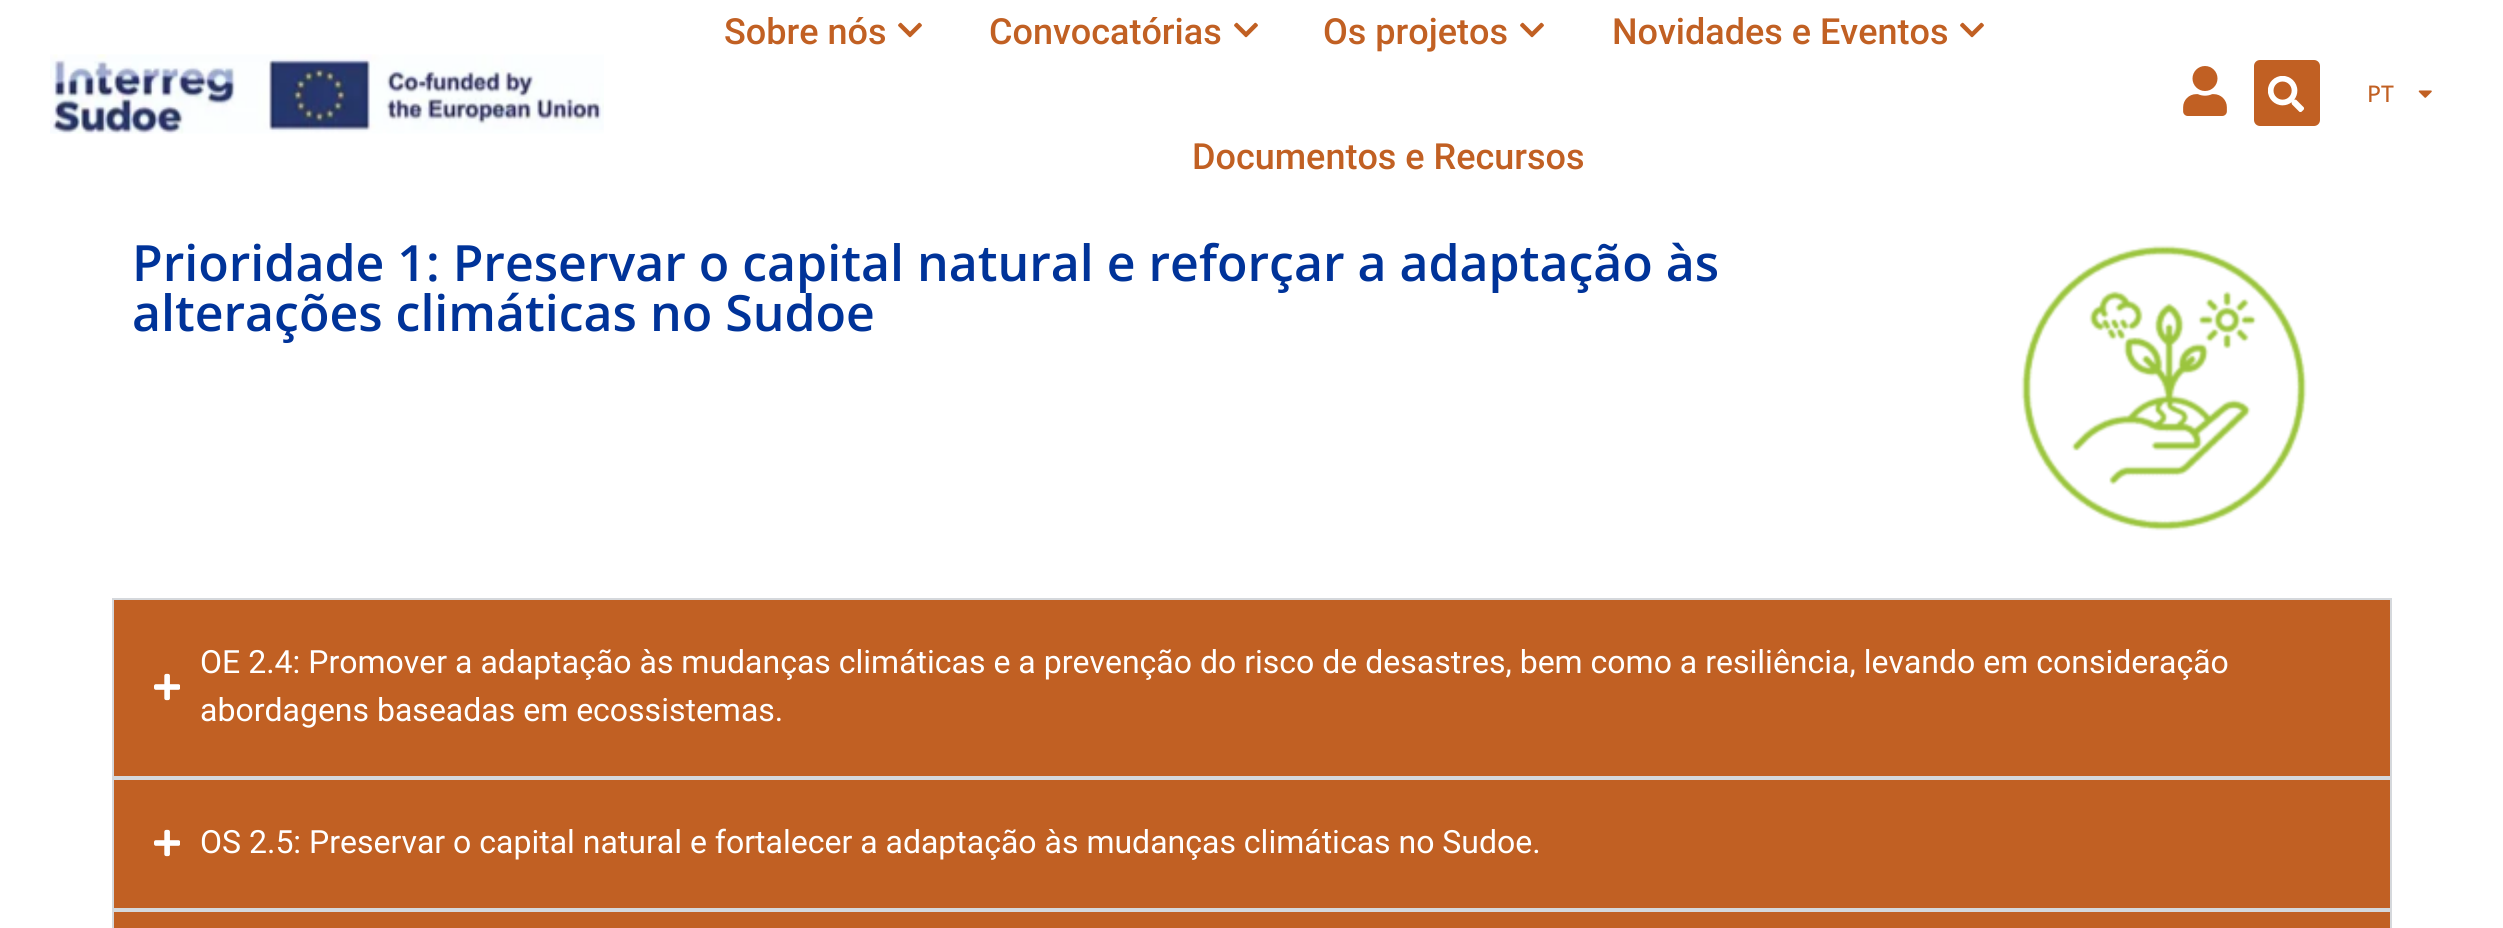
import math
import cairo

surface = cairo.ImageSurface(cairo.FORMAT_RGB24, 2503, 928)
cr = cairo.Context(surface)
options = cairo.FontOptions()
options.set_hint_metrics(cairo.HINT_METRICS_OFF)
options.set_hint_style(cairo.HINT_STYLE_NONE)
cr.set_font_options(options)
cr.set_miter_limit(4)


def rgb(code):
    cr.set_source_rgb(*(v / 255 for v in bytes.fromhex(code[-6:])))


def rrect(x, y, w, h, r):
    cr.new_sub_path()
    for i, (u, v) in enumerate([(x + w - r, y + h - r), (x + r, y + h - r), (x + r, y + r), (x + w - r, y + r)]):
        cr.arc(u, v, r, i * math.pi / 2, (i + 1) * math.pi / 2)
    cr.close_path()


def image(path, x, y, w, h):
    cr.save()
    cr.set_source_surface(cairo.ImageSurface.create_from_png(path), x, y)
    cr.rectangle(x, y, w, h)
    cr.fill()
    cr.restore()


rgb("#ffffff")
cr.paint()
image("img/1.png", 50, 54, 554, 80)
image("img/2.png", 898, 22, 24, 16)
image("img/2.png", 1234, 22, 24, 16)
image("img/2.png", 1520, 22, 24, 16)
image("img/2.png", 1960, 22, 24, 16)
image("img/3.png", 2183, 66, 44, 50)
rgb("#c16023")
rrect(2254, 60, 66, 66, 6)
cr.fill()
image("img/4.png", 2268, 76, 36, 36)
image("img/5.png", 2418, 90, 14, 8)
image("img/6.png", 2021, 245, 286, 286)
cr.rectangle(113, 599, 2278, 178)
cr.fill_preserve()
rgb("#d5d8dc")
cr.stroke()
image("img/7.png", 154, 673, 26, 28)
rgb("#c16023")
cr.rectangle(113, 779, 2278, 130)
cr.fill_preserve()
rgb("#d5d8dc")
cr.stroke()
image("img/7.png", 154, 829, 26, 28)
rgb("#c16023")
cr.rectangle(113, 911, 2278, 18)
cr.fill_preserve()
rgb("#d5d8dc")
cr.stroke()
cr.select_font_face("Roboto Medium")
cr.set_font_size(36)
rgb("#c16023")
for x, y, s in [
    (724, 44, "Sobre nós"),
    (989, 44, "Convocatórias"),
    (1323, 44, "Os projetos"),
    (1612, 44, "Novidades e Eventos"),
    (1192, 169, "Documentos e Recursos"),
]:
    cr.move_to(x, y)
    cr.show_text(s)
cr.select_font_face("Open Sans Medium")
cr.set_font_size(23)
cr.move_to(2367, 102)
cr.show_text("PT")
cr.select_font_face("Open Sans SemiBold")
cr.set_font_size(50)
rgb("#003399")
cr.move_to(132, 281)
cr.show_text("Prioridade 1: Preservar o capital natural e reforçar a adaptação às")
cr.move_to(132, 331)
cr.show_text("alterações climáticas no Sudoe")
cr.select_font_face("Roboto")
cr.set_font_size(32)
rgb("#ffffff")
for x, y, s in [
    (200, 673, "OE 2.4: Promover a adaptação às mudanças climáticas e a prevenção do risco de desastres, bem como a resiliência, levando em consideração"),
    (200, 721, "abordagens baseadas em ecossistemas."),
    (200, 853, "OS 2.5: Preservar o capital natural e fortalecer a adaptação às mudanças climáticas no Sudoe."),
]:
    cr.move_to(x, y)
    cr.show_text(s)
surface.write_to_png("page.png")
